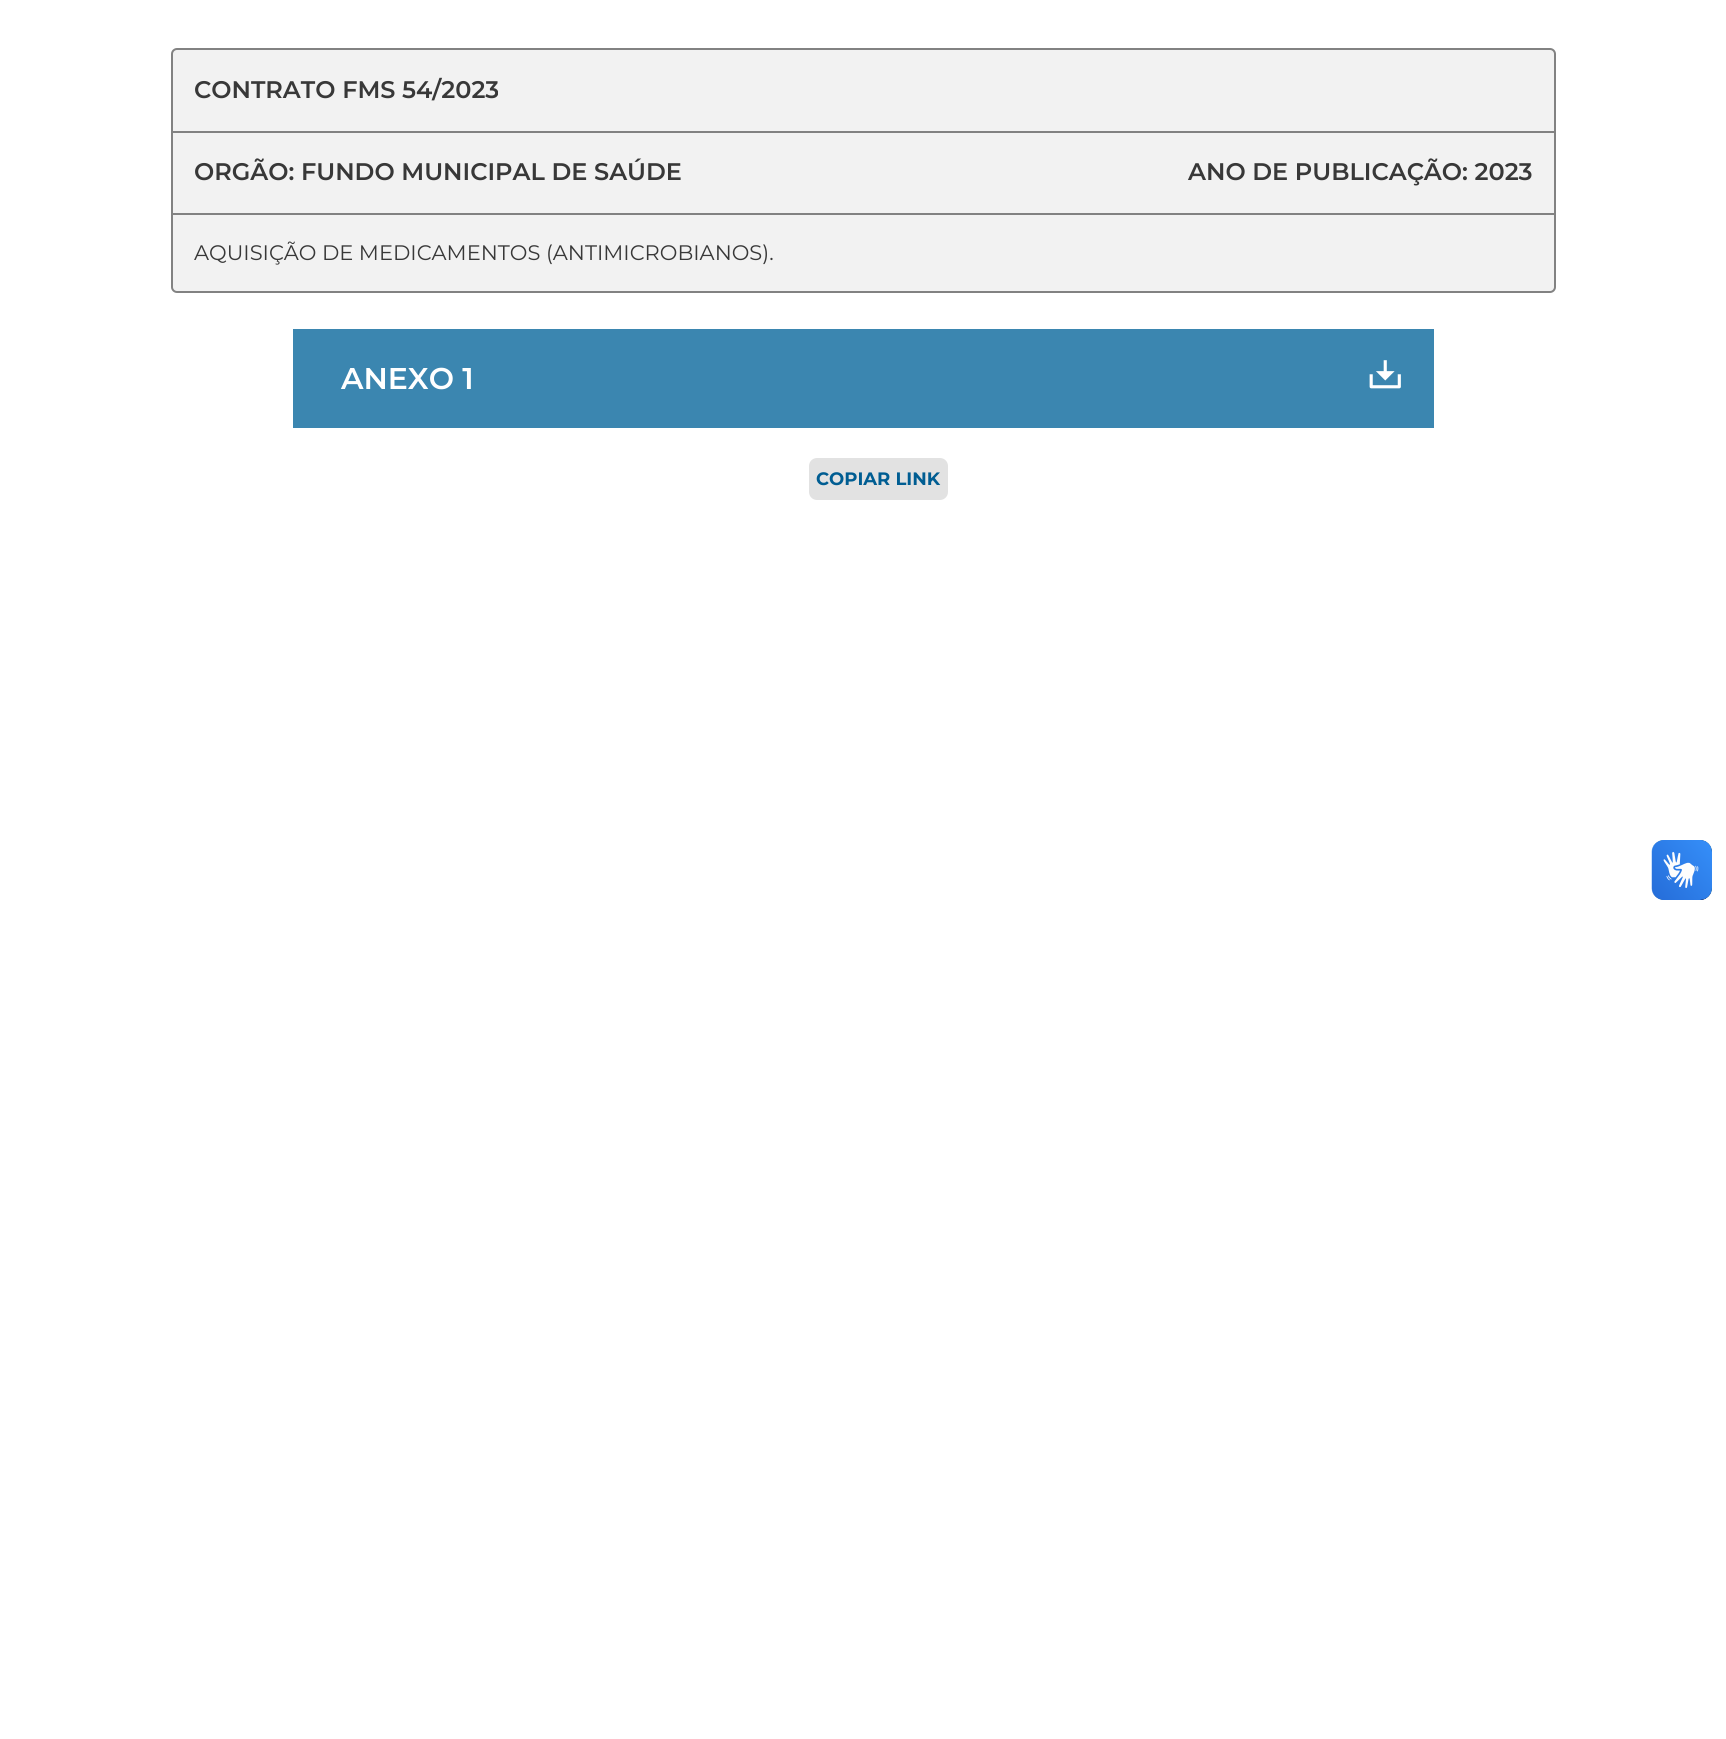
import math
import cairo

surface = cairo.ImageSurface(cairo.FORMAT_RGB24, 1726, 1739)
cr = cairo.Context(surface)
options = cairo.FontOptions()
options.set_hint_metrics(cairo.HINT_METRICS_OFF)
options.set_hint_style(cairo.HINT_STYLE_NONE)
cr.set_font_options(options)
cr.set_miter_limit(4)


def rgb(code):
    cr.set_source_rgb(*(v / 255 for v in bytes.fromhex(code[-6:])))


def rrect(x, y, w, h, r):
    cr.new_sub_path()
    for i, (u, v) in enumerate([(x + w - r, y + h - r), (x + r, y + h - r), (x + r, y + r), (x + w - r, y + r)]):
        cr.arc(u, v, r, i * math.pi / 2, (i + 1) * math.pi / 2)
    cr.close_path()


def image(path, x, y, w, h):
    cr.save()
    cr.set_source_surface(cairo.ImageSurface.create_from_png(path), x, y)
    cr.rectangle(x, y, w, h)
    cr.fill()
    cr.restore()


rgb("#ffffff")
cr.paint()
rgb("#f2f2f2")
rrect(172, 49, 1383, 243, 5)
cr.fill_preserve()
rgb("#828282")
cr.stroke()
for x, y, w, h, color in [
    (173, 131, 1381, 2, "#828282"),
    (173, 213, 1381, 2, "#828282"),
    (293, 329, 1141, 99, "#3b86b0"),
]:
    rgb(color)
    cr.rectangle(x, y, w, h)
    cr.fill()
image("img/1.png", 1369, 360, 32, 29)
rgb("#e2e2e2")
rrect(809, 458, 139, 42, 8)
cr.fill()
rgb("#004e90")
rrect(1652, 840, 60, 60, 12)
cr.fill()
image("img/2.png", 1651, 840, 61, 60)
image("img/3.png", 1652, 840, 60, 60)
cr.select_font_face("Montserrat SemiBold")
cr.set_font_size(24)
rgb("#383838")
for x, y, s in [
    (194, 98, "CONTRATO FMS 54/2023"),
    (194, 180, "ORGÃO: FUNDO MUNICIPAL DE SAÚDE"),
    (1188, 180, "ANO DE PUBLICAÇÃO: 2023"),
]:
    cr.move_to(x, y)
    cr.show_text(s)
cr.select_font_face("Montserrat")
cr.set_font_size(21)
cr.move_to(194, 260)
cr.show_text("AQUISIÇÃO DE MEDICAMENTOS (ANTIMICROBIANOS).")
cr.select_font_face("Montserrat SemiBold")
cr.set_font_size(30)
rgb("#ffffff")
cr.move_to(341, 389)
cr.show_text("ANEXO 1")
cr.select_font_face("Montserrat", cairo.FONT_SLANT_NORMAL, cairo.FONT_WEIGHT_BOLD)
cr.set_font_size(18)
rgb("#005d92")
cr.move_to(816, 485)
cr.show_text("COPIAR LINK")
surface.write_to_png("page.png")
